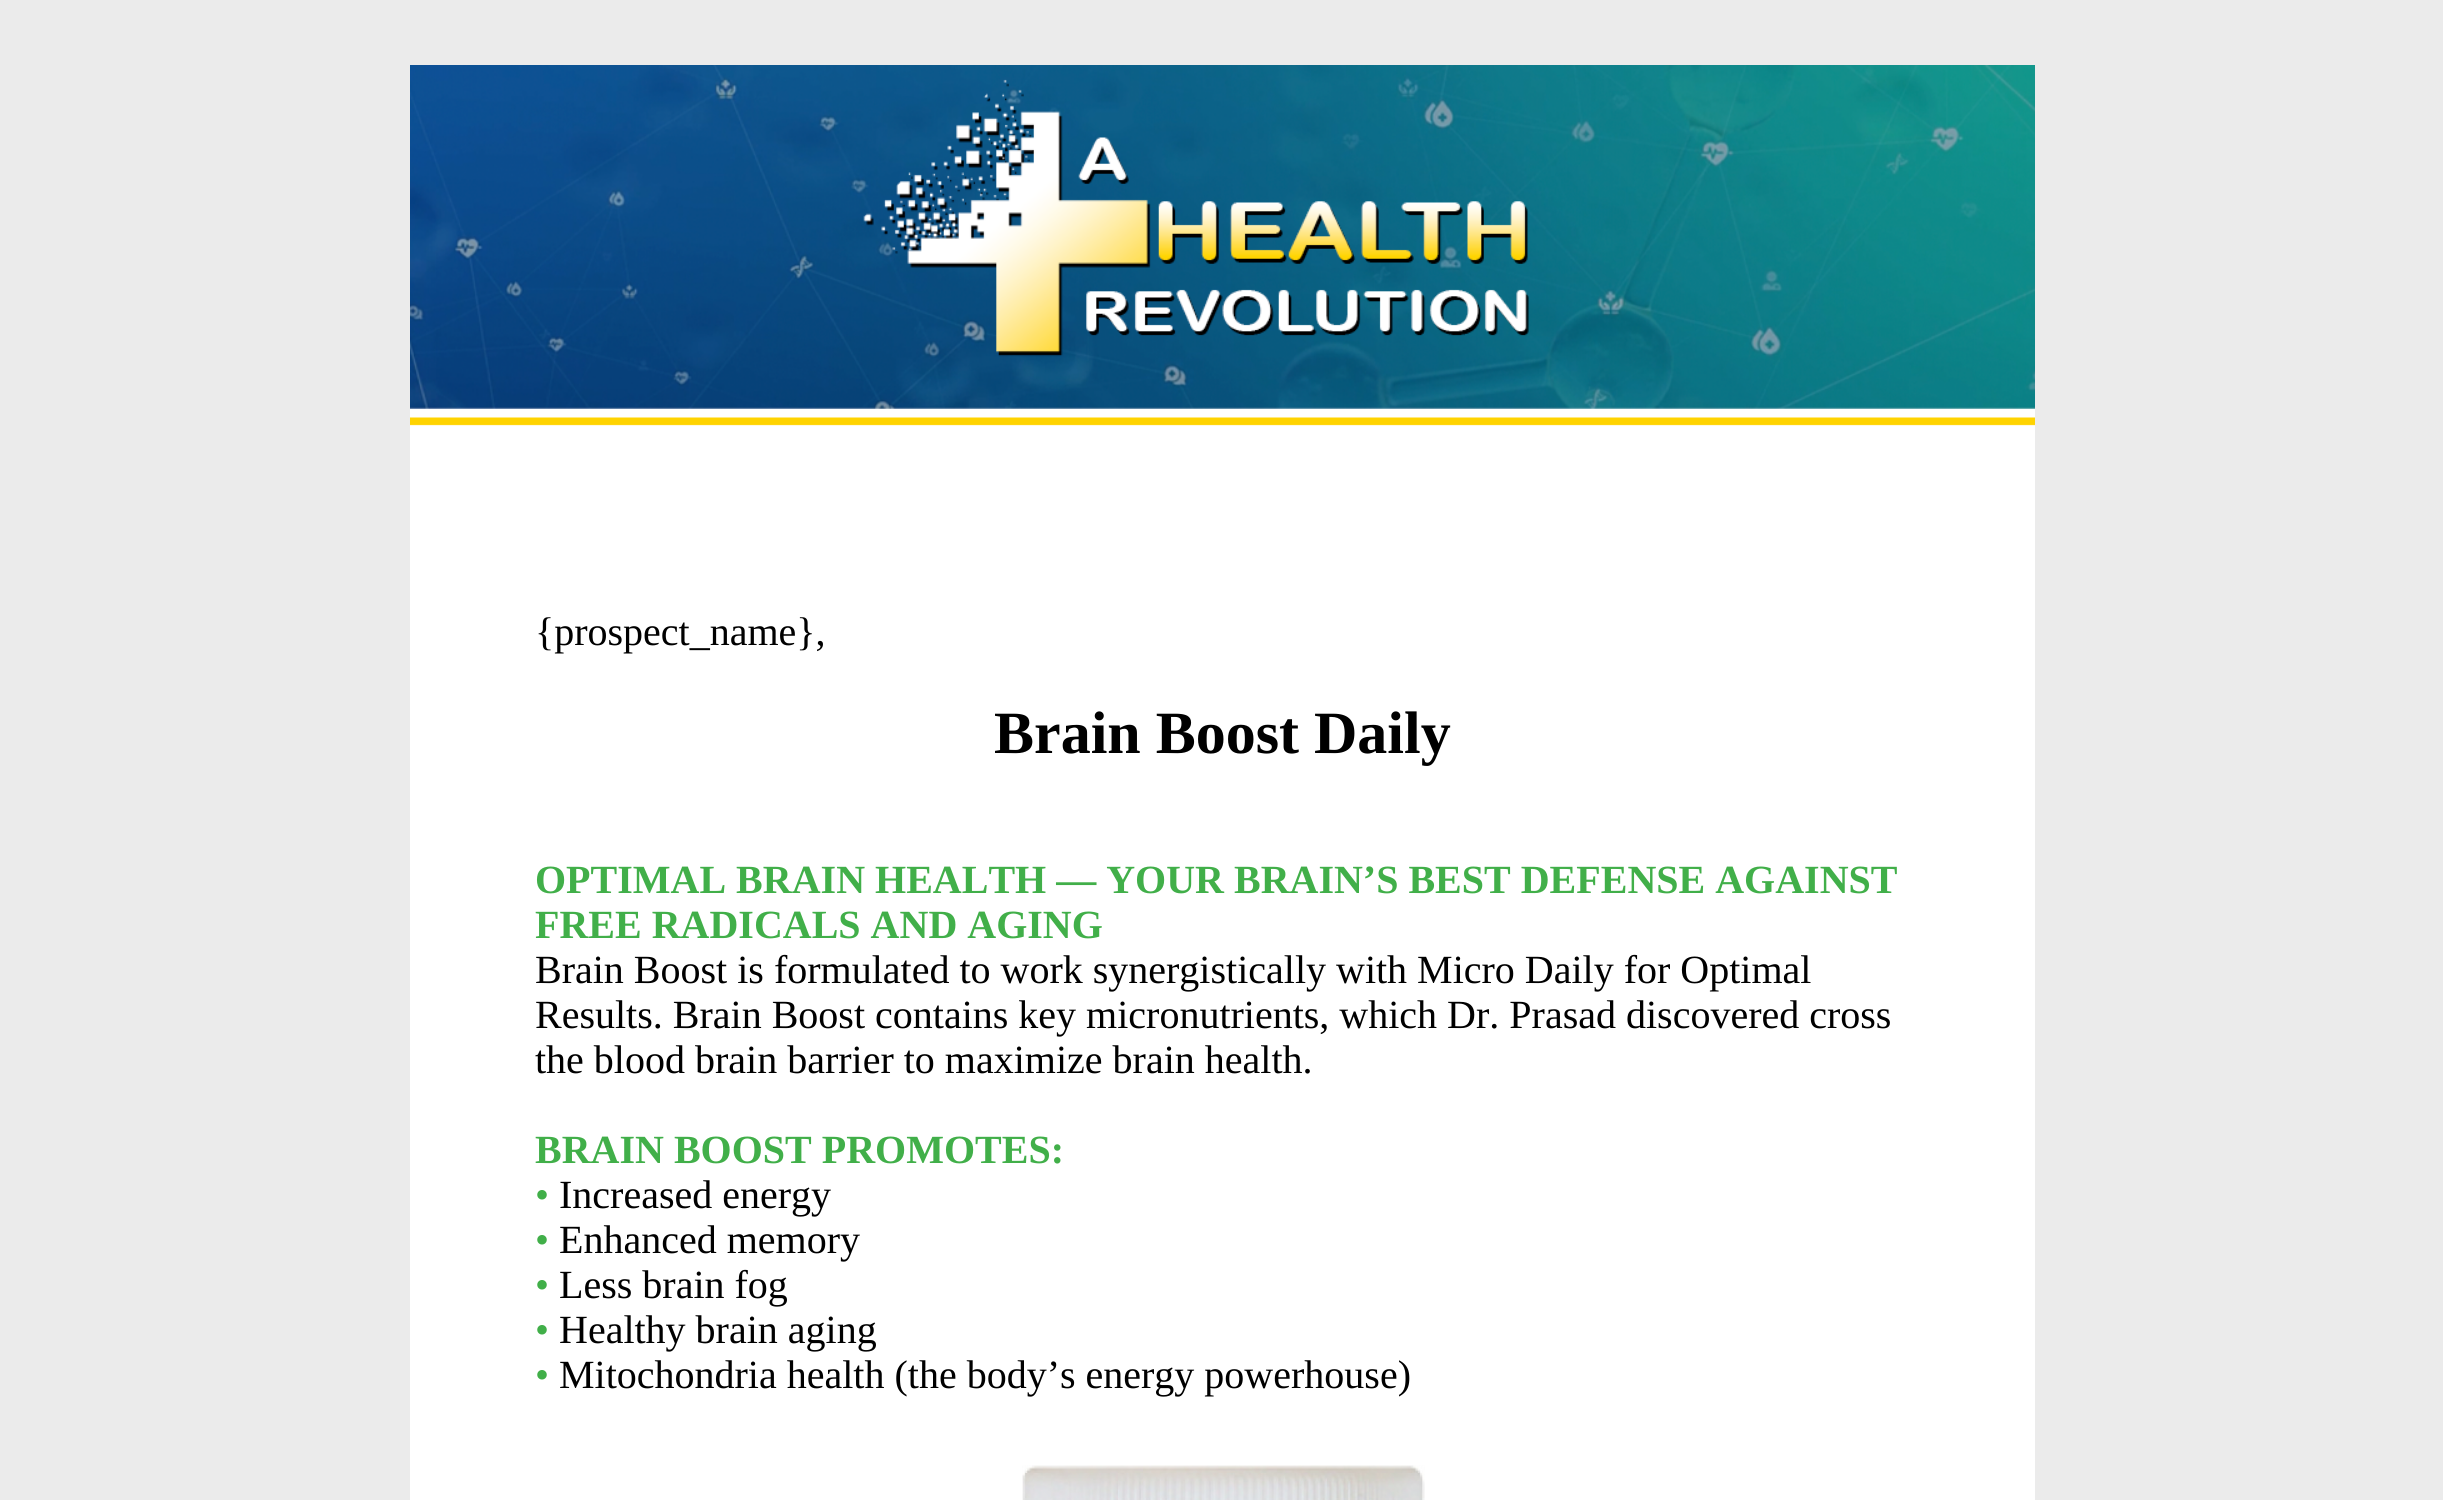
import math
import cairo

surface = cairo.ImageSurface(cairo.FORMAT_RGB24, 2443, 1500)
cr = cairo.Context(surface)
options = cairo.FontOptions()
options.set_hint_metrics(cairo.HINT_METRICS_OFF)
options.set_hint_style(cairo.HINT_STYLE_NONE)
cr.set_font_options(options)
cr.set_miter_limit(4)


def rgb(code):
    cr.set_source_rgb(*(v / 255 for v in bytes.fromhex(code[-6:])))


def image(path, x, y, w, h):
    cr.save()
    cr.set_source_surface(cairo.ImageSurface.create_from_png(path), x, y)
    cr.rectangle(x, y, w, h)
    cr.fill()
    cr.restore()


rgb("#ebebeb")
cr.paint()
rgb("#ffffff")
cr.rectangle(410, 426, 1625, 1074)
cr.fill()
image("img/1.png", 410, 65, 1625, 361)
image("img/2.png", 1022, 1465, 403, 35)
cr.select_font_face("Liberation Serif")
cr.set_font_size(40)
rgb("#000000")
cr.move_to(535, 645)
cr.show_text("{prospect_name},")
cr.select_font_face("Liberation Serif", cairo.FONT_SLANT_NORMAL, cairo.FONT_WEIGHT_BOLD)
cr.set_font_size(60)
cr.move_to(994, 753)
cr.show_text("Brain Boost Daily")
cr.set_font_size(40)
rgb("#41af49")
cr.move_to(535, 893)
cr.show_text("OPTIMAL BRAIN HEALTH — YOUR BRAIN’S BEST DEFENSE AGAINST")
cr.move_to(535, 938)
cr.show_text("FREE RADICALS AND AGING")
cr.select_font_face("Liberation Serif")
rgb("#000000")
for x, y, s in [
    (535, 983, "Brain Boost is formulated to work synergistically with Micro Daily for Optimal"),
    (535, 1028, "Results. Brain Boost contains key micronutrients, which Dr. Prasad discovered cross"),
    (535, 1073, "the blood brain barrier to maximize brain health."),
]:
    cr.move_to(x, y)
    cr.show_text(s)
cr.select_font_face("Liberation Serif", cairo.FONT_SLANT_NORMAL, cairo.FONT_WEIGHT_BOLD)
rgb("#41af49")
cr.move_to(535, 1163)
cr.show_text("BRAIN BOOST PROMOTES:")
cr.select_font_face("Liberation Serif")
cr.move_to(535, 1208)
cr.show_text("•")
rgb("#000000")
cr.move_to(559, 1208)
cr.show_text("Increased energy")
rgb("#41af49")
cr.move_to(535, 1253)
cr.show_text("•")
rgb("#000000")
cr.move_to(559, 1253)
cr.show_text("Enhanced memory")
rgb("#41af49")
cr.move_to(535, 1298)
cr.show_text("•")
rgb("#000000")
cr.move_to(559, 1298)
cr.show_text("Less brain fog")
rgb("#41af49")
cr.move_to(535, 1343)
cr.show_text("•")
rgb("#000000")
cr.move_to(559, 1343)
cr.show_text("Healthy brain aging")
rgb("#41af49")
cr.move_to(535, 1388)
cr.show_text("•")
rgb("#000000")
cr.move_to(559, 1388)
cr.show_text("Mitochondria health (the body’s energy powerhouse)")
surface.write_to_png("page.png")
